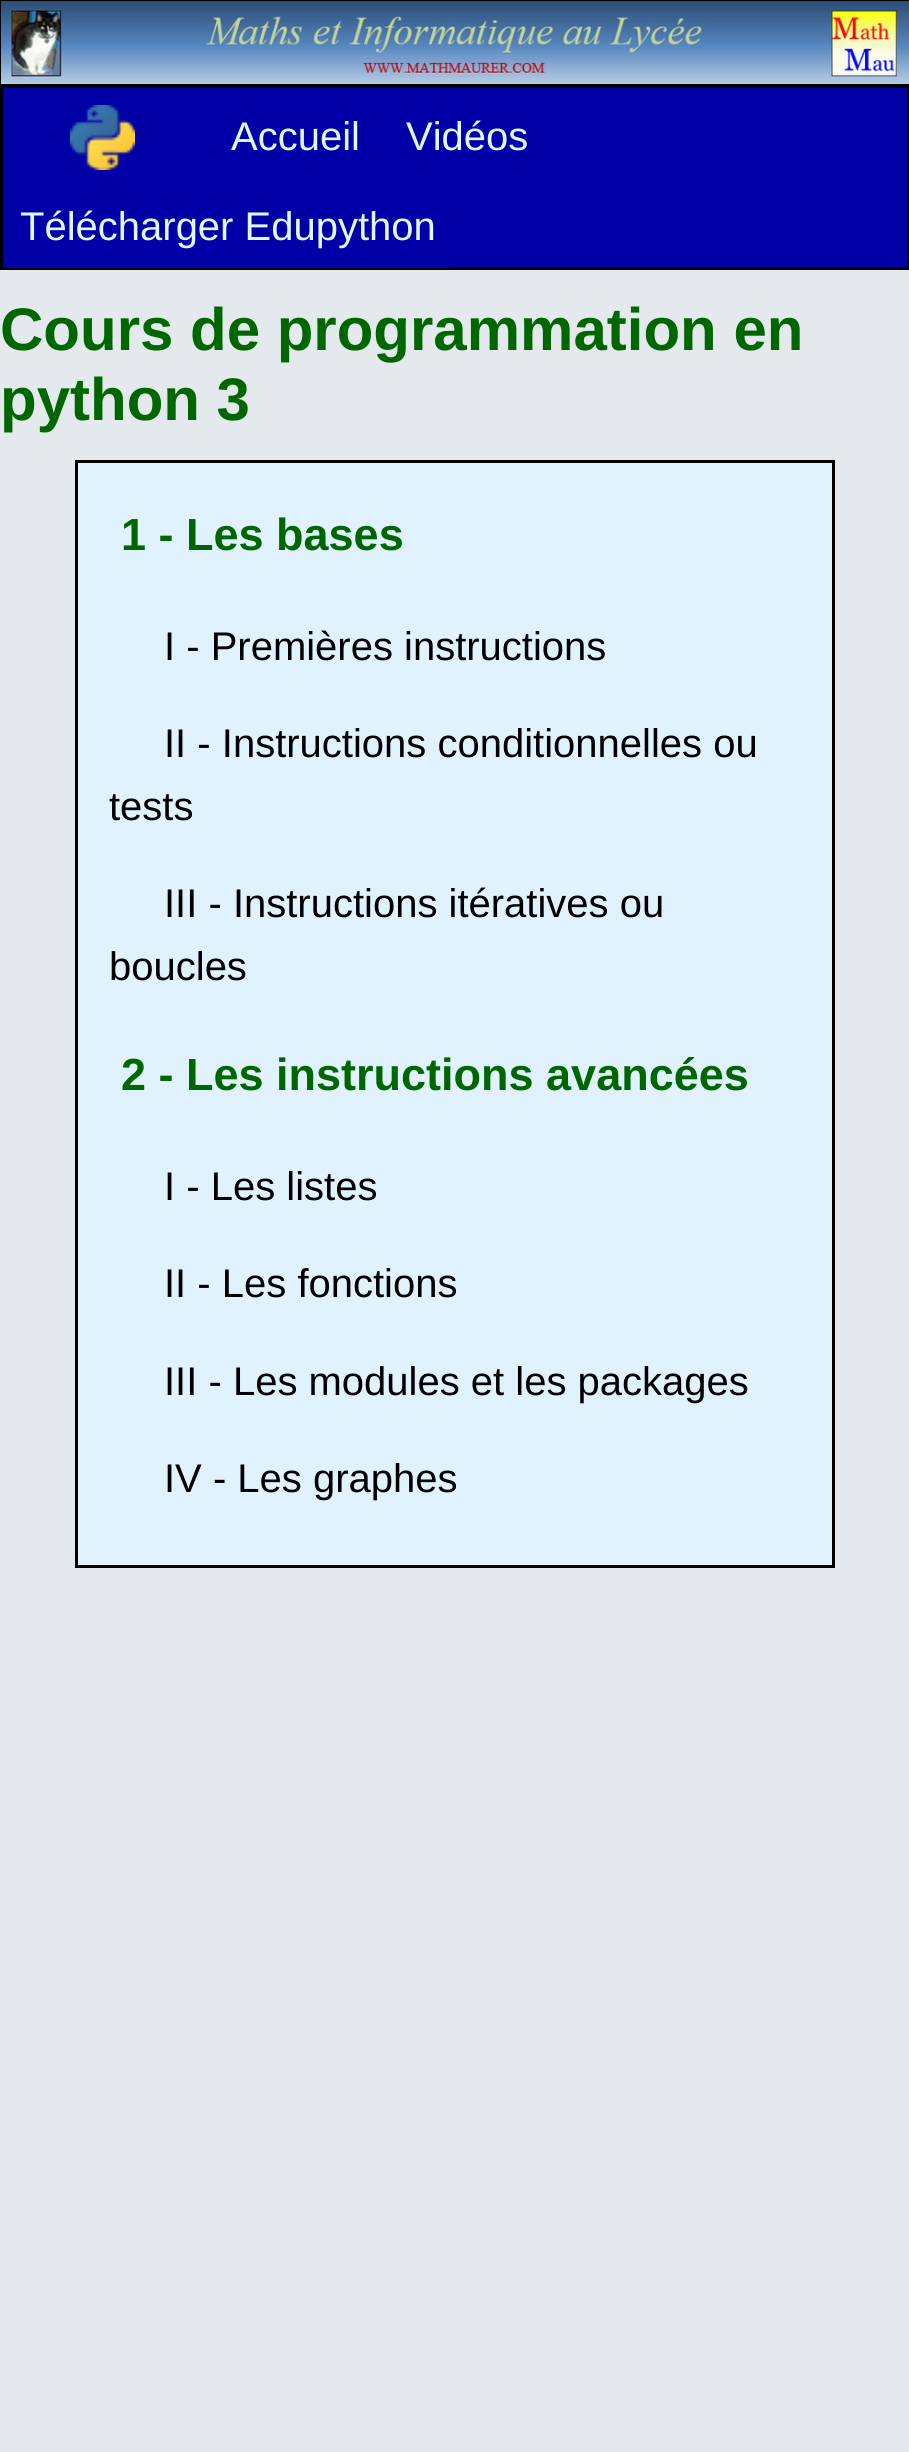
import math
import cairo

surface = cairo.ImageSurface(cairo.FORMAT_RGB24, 909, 2452)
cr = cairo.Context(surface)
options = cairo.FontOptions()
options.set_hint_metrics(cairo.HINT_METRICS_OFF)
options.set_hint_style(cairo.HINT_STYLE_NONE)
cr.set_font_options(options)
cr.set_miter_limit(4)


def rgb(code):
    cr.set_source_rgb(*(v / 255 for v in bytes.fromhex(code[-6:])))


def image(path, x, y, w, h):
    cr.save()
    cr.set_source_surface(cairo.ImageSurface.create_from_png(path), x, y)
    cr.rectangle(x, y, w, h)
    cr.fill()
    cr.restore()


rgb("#e3e9ec")
cr.paint()
image("img/1.png", 0, 0, 909, 85)
rgb("#0000a6")
cr.rectangle(1.5, 86.5, 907, 182)
cr.fill_preserve()
rgb("#000000")
cr.set_line_width(3)
cr.stroke()
image("img/2.png", 70, 105, 65, 65)
rgb("#0000a6")
cr.rectangle(3, 267, 450, 1)
cr.fill()
rgb("#e1f2ff")
cr.rectangle(76.5, 461.5, 757, 1105)
cr.fill_preserve()
rgb("#000000")
cr.stroke()
cr.select_font_face("Liberation Sans")
cr.set_font_size(40)
rgb("#dff8ff")
for x, y, s in [
    (231, 150, "Accueil"),
    (406, 150, "Vidéos"),
    (20, 240, "Télécharger Edupython"),
]:
    cr.move_to(x, y)
    cr.show_text(s)
cr.select_font_face("Liberation Sans", cairo.FONT_SLANT_NORMAL, cairo.FONT_WEIGHT_BOLD)
cr.set_font_size(60)
rgb("#006600")
cr.move_to(0, 350)
cr.show_text("Cours de programmation en")
cr.move_to(0, 420)
cr.show_text("python 3")
cr.set_font_size(45)
cr.move_to(121, 550)
cr.show_text("1 - Les bases")
cr.select_font_face("Liberation Sans")
cr.set_font_size(40)
rgb("#000000")
for x, y, s in [
    (164, 660, "I - Premières instructions"),
    (164, 757, "II - Instructions conditionnelles ou"),
    (109, 820, "tests"),
    (164, 917, "III - Instructions itératives ou"),
    (109, 980, "boucles"),
]:
    cr.move_to(x, y)
    cr.show_text(s)
cr.select_font_face("Liberation Sans", cairo.FONT_SLANT_NORMAL, cairo.FONT_WEIGHT_BOLD)
cr.set_font_size(45)
rgb("#006600")
cr.move_to(121, 1090)
cr.show_text("2 - Les instructions avancées")
cr.select_font_face("Liberation Sans")
cr.set_font_size(40)
rgb("#000000")
for x, y, s in [
    (164, 1200, "I - Les listes"),
    (164, 1297, "II - Les fonctions"),
    (164, 1395, "III - Les modules et les packages"),
    (164, 1492, "IV - Les graphes"),
]:
    cr.move_to(x, y)
    cr.show_text(s)
surface.write_to_png("page.png")
